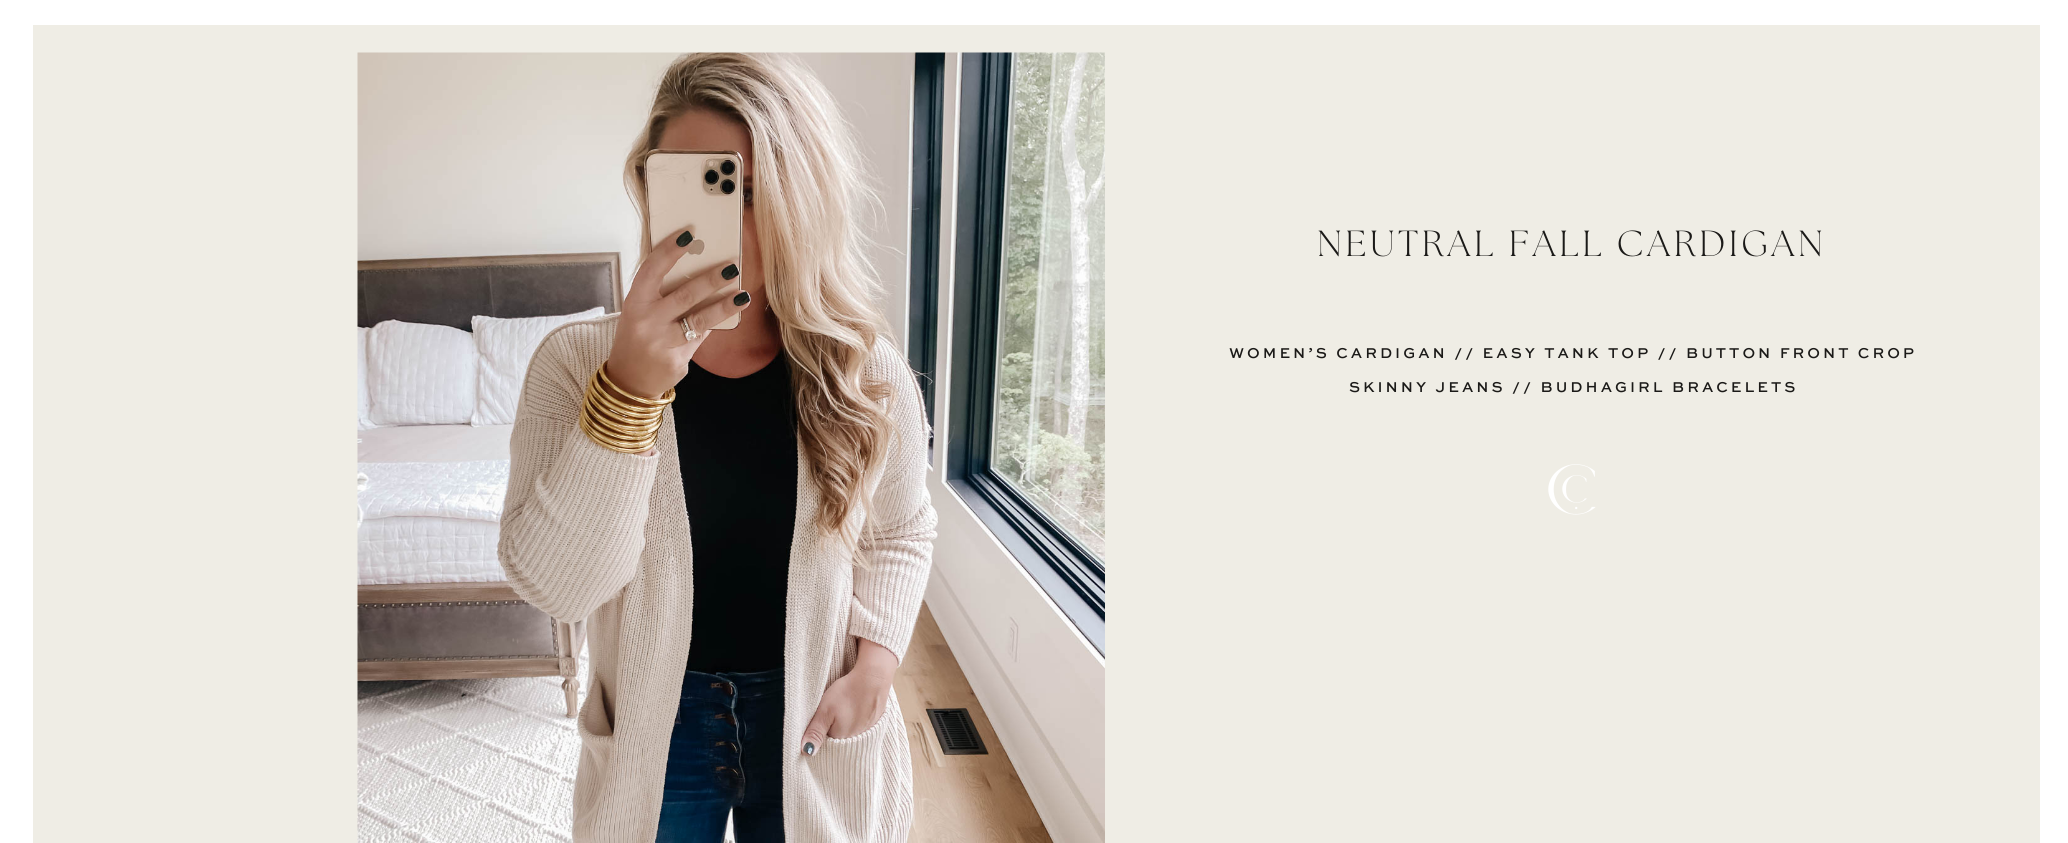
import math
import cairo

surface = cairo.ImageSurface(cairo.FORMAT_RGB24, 2068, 843)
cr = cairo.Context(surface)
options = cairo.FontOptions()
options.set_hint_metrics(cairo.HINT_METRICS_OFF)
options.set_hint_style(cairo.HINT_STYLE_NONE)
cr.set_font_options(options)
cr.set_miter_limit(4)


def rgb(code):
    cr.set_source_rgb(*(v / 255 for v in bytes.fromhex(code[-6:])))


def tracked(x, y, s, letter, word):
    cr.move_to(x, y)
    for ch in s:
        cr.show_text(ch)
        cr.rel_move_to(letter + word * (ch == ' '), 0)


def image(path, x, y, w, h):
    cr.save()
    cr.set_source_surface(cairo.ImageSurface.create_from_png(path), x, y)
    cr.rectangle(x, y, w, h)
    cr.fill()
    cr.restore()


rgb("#ffffff")
cr.paint()
rgb("#efede5")
cr.rectangle(33, 25, 2007, 818)
cr.fill()
image("img/1.png", 357, 52, 748, 791)
image("img/2.png", 1548, 464, 48, 51)
cr.select_font_face("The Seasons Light")
cr.set_font_size(36.25)
rgb("#1b1a18")
tracked(1317, 256, "NEUTRAL FALL CARDIGAN", 3.6, 0)
cr.select_font_face("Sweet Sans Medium")
cr.set_font_size(15)
tracked(1229, 358, "WOMEN’S CARDIGAN // EASY TANK TOP // BUTTON FRONT CROP", 3, 0)
tracked(1349, 392, "SKINNY JEANS // BUDHAGIRL BRACELETS", 3, 0)
surface.write_to_png("page.png")
